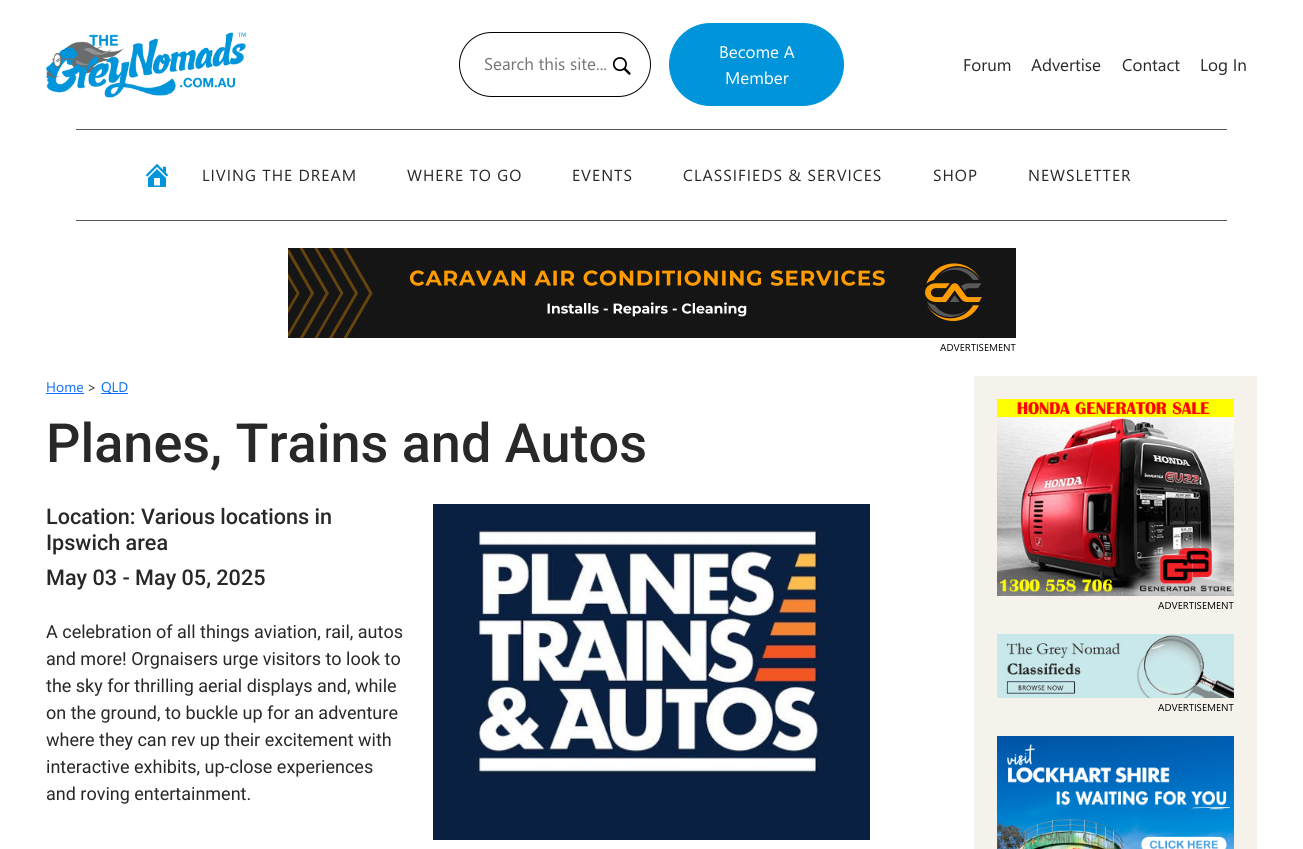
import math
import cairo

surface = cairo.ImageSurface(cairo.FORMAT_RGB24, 1303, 849)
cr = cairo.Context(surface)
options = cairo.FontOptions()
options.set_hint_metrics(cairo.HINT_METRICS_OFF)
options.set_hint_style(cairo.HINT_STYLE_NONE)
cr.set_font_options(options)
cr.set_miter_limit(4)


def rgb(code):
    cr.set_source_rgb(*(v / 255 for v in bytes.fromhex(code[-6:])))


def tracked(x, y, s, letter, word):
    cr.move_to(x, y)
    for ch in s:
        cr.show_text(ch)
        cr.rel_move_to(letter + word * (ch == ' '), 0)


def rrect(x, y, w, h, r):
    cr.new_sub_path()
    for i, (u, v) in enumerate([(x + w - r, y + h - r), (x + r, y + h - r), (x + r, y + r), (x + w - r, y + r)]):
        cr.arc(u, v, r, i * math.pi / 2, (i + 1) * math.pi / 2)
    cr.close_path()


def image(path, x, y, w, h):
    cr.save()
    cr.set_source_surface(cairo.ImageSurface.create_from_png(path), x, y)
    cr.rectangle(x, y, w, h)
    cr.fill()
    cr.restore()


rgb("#ffffff")
cr.paint()
image("img/1.png", 46, 32, 200, 66)
rrect(459.5, 32.5, 191, 64, 32)
rgb("#000000")
cr.set_line_width(1)
cr.stroke()
image("img/2.png", 612, 57, 19, 18)
rgb("#0095da")
rrect(669.5, 23.5, 174, 82, 41)
cr.fill_preserve()
cr.stroke()
rgb("#555555")
cr.rectangle(76, 129, 1151, 1)
cr.fill()
cr.rectangle(76, 220, 1151, 1)
cr.fill()
image("img/3.png", 145, 163, 24, 24)
image("img/4.png", 288, 248, 728, 90)
rgb("#0d6efd")
cr.rectangle(46, 393, 38, 1)
cr.fill()
cr.rectangle(101, 393, 27, 1)
cr.fill()
image("img/5.png", 433, 504, 437, 336)
rgb("#f5f1eb")
cr.rectangle(974, 376, 283, 473)
cr.fill()
image("img/6.png", 997, 399, 237, 197)
image("img/7.png", 997, 634, 237, 64)
image("img/8.png", 997, 736, 237, 113)
cr.select_font_face("Segoe UI")
cr.set_font_size(17)
rgb("#757575")
cr.move_to(484, 70)
cr.show_text("Search this site...")
rgb("#ffffff")
cr.move_to(719, 58)
cr.show_text("Become A")
cr.move_to(725, 84)
cr.show_text("Member")
rgb("#282828")
for x, y, s in [
    (963, 71, "Forum"),
    (1031, 71, "Advertise"),
    (1122, 71, "Contact"),
    (1200, 71, "Log In"),
]:
    cr.move_to(x, y)
    cr.show_text(s)
cr.set_font_size(16)
for x, y, s in [
    (202, 181, "LIVING THE DREAM"),
    (407, 181, "WHERE TO GO"),
    (572, 181, "EVENTS"),
    (683, 181, "CLASSIFIEDS & SERVICES"),
    (933, 181, "SHOP"),
    (1028, 181, "NEWSLETTER"),
]:
    tracked(x, y, s, 1, 0)
cr.set_font_size(10)
rgb("#000000")
cr.move_to(940, 351)
cr.show_text("ADVERTISEMENT")
cr.set_font_size(14)
rgb("#0d6efd")
cr.move_to(46, 392)
cr.show_text("Home")
rgb("#282828")
cr.move_to(87, 392)
cr.show_text(">")
rgb("#0d6efd")
cr.move_to(101, 392)
cr.show_text("QLD")
cr.select_font_face("Roboto Medium")
cr.set_font_size(54)
rgb("#282828")
cr.move_to(46, 462)
cr.show_text("Planes, Trains and Autos")
cr.set_font_size(21.6)
for x, y, s in [
    (46, 524, "Location: Various locations in"),
    (46, 550, "Ipswich area"),
    (46, 585, "May 03 - May 05, 2025"),
]:
    cr.move_to(x, y)
    cr.show_text(s)
cr.select_font_face("Roboto")
cr.set_font_size(18)
for x, y, s in [
    (46, 638, "A celebration of all things aviation, rail, autos"),
    (46, 665, "and more! Orgnaisers urge visitors to look to"),
    (46, 692, "the sky for thrilling aerial displays and, while"),
    (46, 719, "on the ground, to buckle up for an adventure"),
    (46, 746, "where they can rev up their excitement with"),
    (46, 773, "interactive exhibits, up-close experiences"),
    (46, 800, "and roving entertainment."),
]:
    cr.move_to(x, y)
    cr.show_text(s)
cr.select_font_face("Segoe UI")
cr.set_font_size(10)
rgb("#000000")
cr.move_to(1158, 609)
cr.show_text("ADVERTISEMENT")
cr.move_to(1158, 711)
cr.show_text("ADVERTISEMENT")
surface.write_to_png("page.png")
